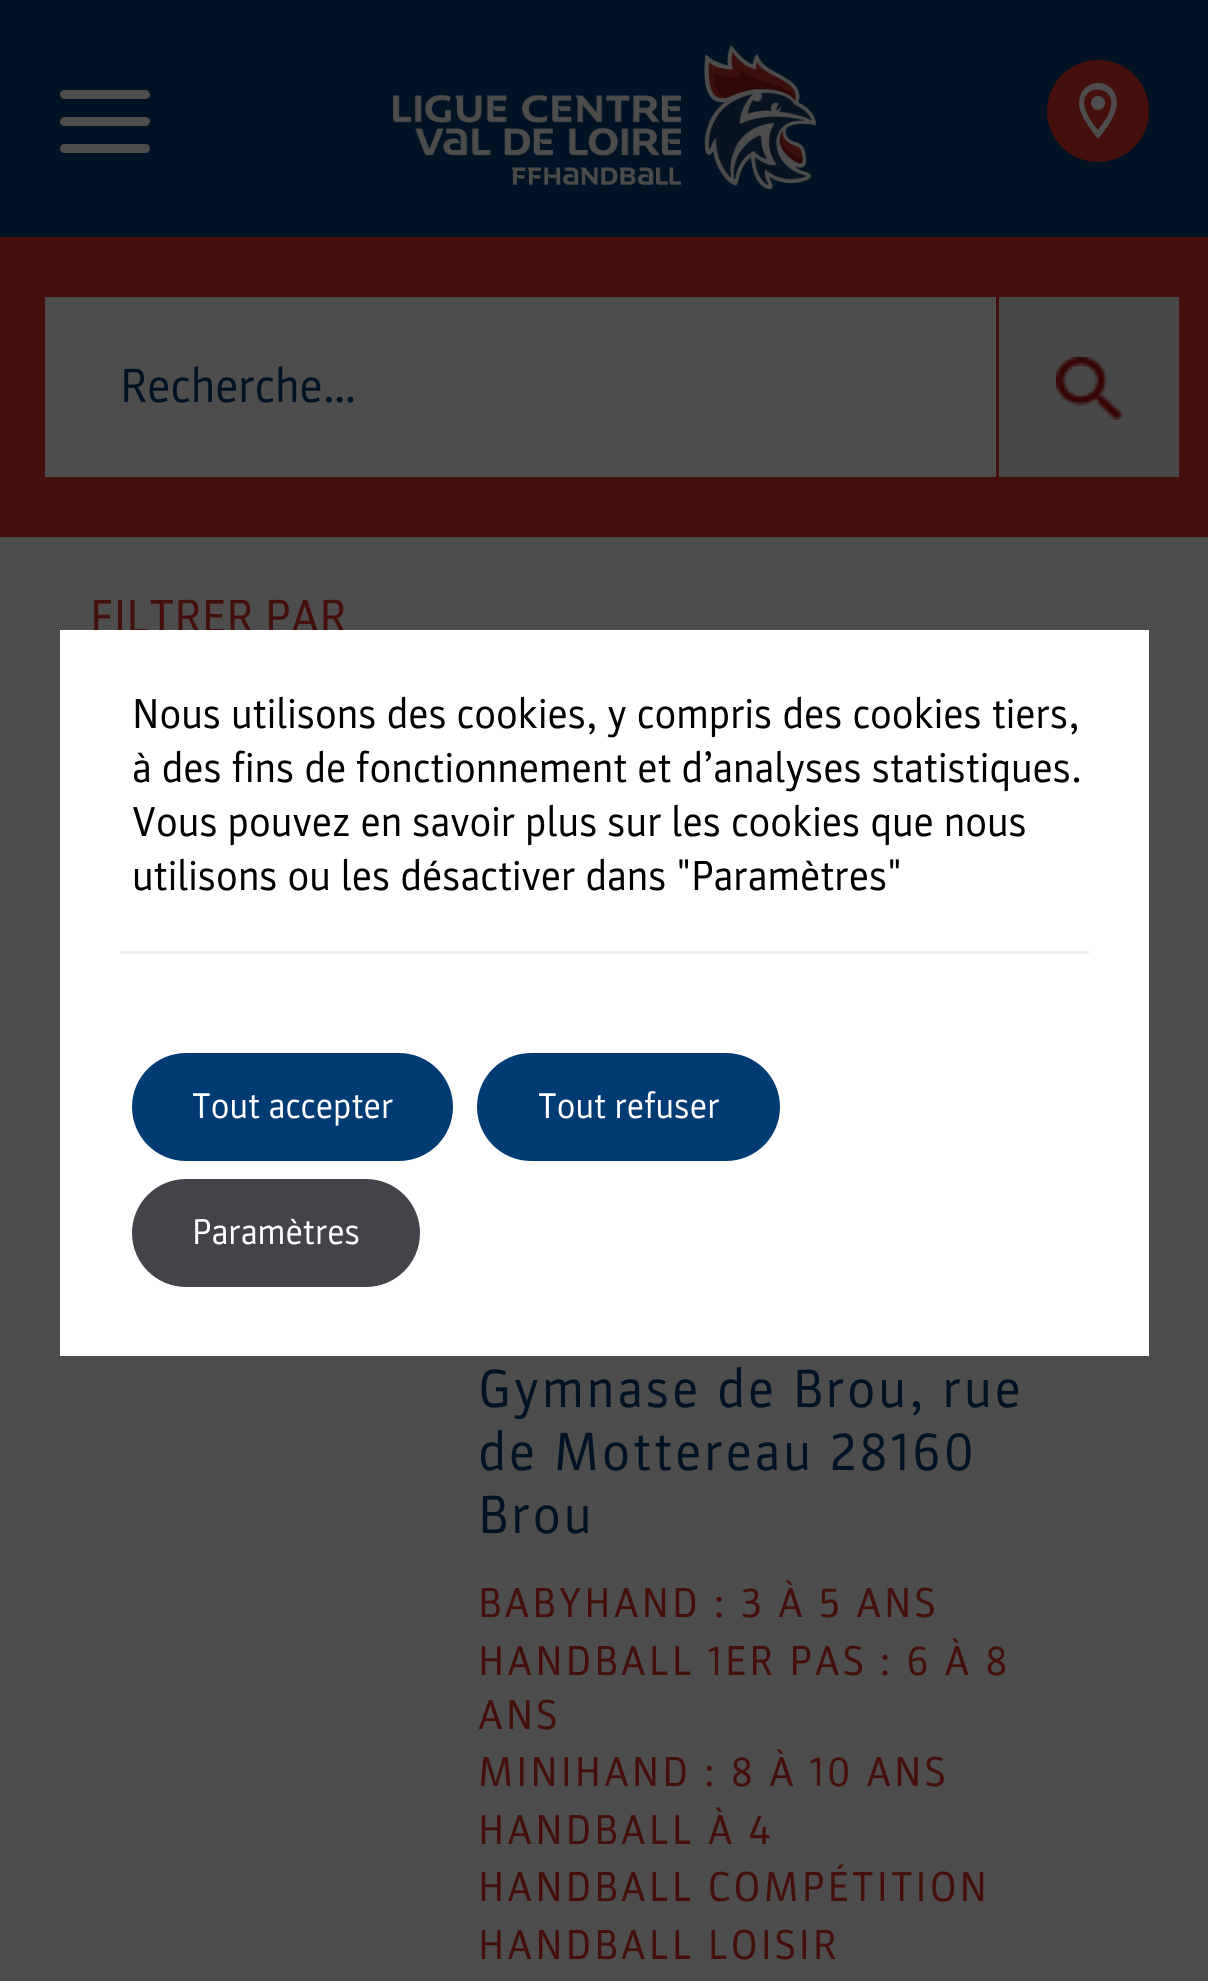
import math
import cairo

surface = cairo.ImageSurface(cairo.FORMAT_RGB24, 1208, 1981)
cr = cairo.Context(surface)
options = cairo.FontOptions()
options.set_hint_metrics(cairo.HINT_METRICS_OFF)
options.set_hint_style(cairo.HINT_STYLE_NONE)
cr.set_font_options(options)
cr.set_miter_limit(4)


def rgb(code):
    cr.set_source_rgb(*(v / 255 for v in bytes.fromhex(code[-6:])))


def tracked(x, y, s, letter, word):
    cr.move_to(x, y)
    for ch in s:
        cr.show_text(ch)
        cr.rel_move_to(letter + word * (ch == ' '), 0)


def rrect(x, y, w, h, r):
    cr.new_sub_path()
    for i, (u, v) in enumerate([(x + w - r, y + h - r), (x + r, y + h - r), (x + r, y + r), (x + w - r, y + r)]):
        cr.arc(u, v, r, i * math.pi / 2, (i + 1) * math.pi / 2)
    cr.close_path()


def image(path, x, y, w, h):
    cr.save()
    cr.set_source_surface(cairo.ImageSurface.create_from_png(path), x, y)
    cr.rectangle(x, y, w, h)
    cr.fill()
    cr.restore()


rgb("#001223")
cr.paint()
rgb("#4d4d4d")
rrect(60, 90, 90, 9, 4.5)
cr.fill()
rrect(60, 117, 90, 9, 4.5)
cr.fill()
rrect(60, 144, 90, 9, 4.5)
cr.fill()
image("img/1.png", 393, 45, 423, 144)
rgb("#450f0b")
cr.arc(1098, 111, 51, 0, 2 * math.pi)
cr.fill()
rgb("#4d4d4d")
cr.new_path()
cr.move_to(1098, 83)
cr.curve_to(1087, 83, 1079, 92, 1079, 103)
cr.curve_to(1079, 117, 1098, 139, 1098, 139)
cr.curve_to(1098, 139, 1117, 117, 1117, 103)
cr.curve_to(1117, 92, 1109, 83, 1098, 83)
cr.close_path()
cr.move_to(1084, 103)
cr.curve_to(1084, 83, 1115, 86, 1111, 106)
cr.curve_to(1110, 115, 1103, 123, 1098, 130)
cr.curve_to(1092, 123, 1084, 111, 1084, 103)
cr.close_path()
cr.fill()
cr.arc(1098, 103, 7, 0, 2 * math.pi)
cr.fill()
for x, y, w, h, color in [
    (0, 537, 1208, 1444, "#4d4d4d"),
    (0, 237, 1208, 300, "#450f0b"),
    (45, 297, 951, 180, "#4d4d4d"),
    (999, 297, 180, 180, "#484848"),
]:
    rgb(color)
    cr.rectangle(x, y, w, h)
    cr.fill()
image("img/2.png", 1056, 357, 66, 63)
cr.select_font_face("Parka")
cr.set_font_size(48)
rgb("#001223")
cr.move_to(120, 402)
cr.show_text("Recherche…")
rgb("#450f0b")
cr.move_to(90, 633)
cr.show_text("FILTRER PAR")
cr.set_font_size(54)
rgb("#001223")
for x, y, s in [
    (478, 1407, "Gymnase de Brou, rue"),
    (478, 1470, "de Mottereau 28160"),
    (478, 1533, "Brou"),
]:
    tracked(x, y, s, 3, 0)
cr.set_font_size(42)
rgb("#450f0b")
for x, y, s in [
    (478, 1617, "BABYHAND : 3 À 5 ANS"),
    (478, 1675, "HANDBALL 1ER PAS : 6 À 8"),
    (478, 1729, "ANS"),
    (478, 1786, "MINIHAND : 8 À 10 ANS"),
    (478, 1844, "HANDBALL À 4"),
    (478, 1901, "HANDBALL COMPÉTITION"),
    (478, 1959, "HANDBALL LOISIR"),
]:
    tracked(x, y, s, 3, 0)
rgb("#ffffff")
cr.rectangle(60, 630, 1089, 726)
cr.fill()
rgb("#000000")
for x, y, s in [
    (132, 728, "Nous utilisons des cookies, y compris des cookies tiers,"),
    (132, 782, "à des fins de fonctionnement et d’analyses statistiques."),
    (132, 836, "Vous pouvez en savoir plus sur les cookies que nous"),
    (132, 890, "utilisons ou les désactiver dans \"Paramètres\""),
]:
    cr.move_to(x, y)
    cr.show_text(s)
rgb("#eeeeee")
cr.rectangle(120, 951, 969, 3)
cr.fill()
rgb("#003c73")
rrect(132, 1053, 321, 108, 54)
cr.fill()
cr.set_font_size(36)
rgb("#ffffff")
cr.move_to(192, 1118)
cr.show_text("Tout accepter")
rgb("#003c73")
rrect(477, 1053, 303, 108, 54)
cr.fill()
rgb("#ffffff")
cr.move_to(538, 1118)
cr.show_text("Tout refuser")
rgb("#424449")
rrect(132, 1179, 288, 108, 54)
cr.fill()
rgb("#ffffff")
cr.move_to(192, 1244)
cr.show_text("Paramètres")
surface.write_to_png("page.png")
